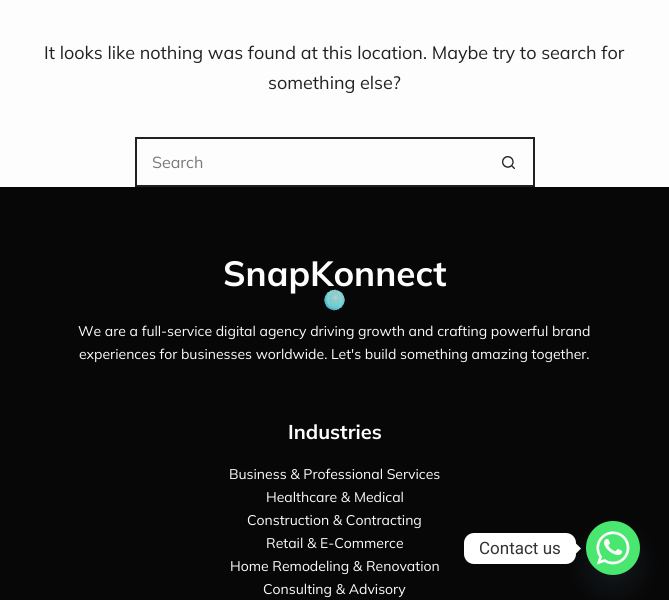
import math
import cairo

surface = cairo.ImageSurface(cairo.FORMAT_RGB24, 669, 600)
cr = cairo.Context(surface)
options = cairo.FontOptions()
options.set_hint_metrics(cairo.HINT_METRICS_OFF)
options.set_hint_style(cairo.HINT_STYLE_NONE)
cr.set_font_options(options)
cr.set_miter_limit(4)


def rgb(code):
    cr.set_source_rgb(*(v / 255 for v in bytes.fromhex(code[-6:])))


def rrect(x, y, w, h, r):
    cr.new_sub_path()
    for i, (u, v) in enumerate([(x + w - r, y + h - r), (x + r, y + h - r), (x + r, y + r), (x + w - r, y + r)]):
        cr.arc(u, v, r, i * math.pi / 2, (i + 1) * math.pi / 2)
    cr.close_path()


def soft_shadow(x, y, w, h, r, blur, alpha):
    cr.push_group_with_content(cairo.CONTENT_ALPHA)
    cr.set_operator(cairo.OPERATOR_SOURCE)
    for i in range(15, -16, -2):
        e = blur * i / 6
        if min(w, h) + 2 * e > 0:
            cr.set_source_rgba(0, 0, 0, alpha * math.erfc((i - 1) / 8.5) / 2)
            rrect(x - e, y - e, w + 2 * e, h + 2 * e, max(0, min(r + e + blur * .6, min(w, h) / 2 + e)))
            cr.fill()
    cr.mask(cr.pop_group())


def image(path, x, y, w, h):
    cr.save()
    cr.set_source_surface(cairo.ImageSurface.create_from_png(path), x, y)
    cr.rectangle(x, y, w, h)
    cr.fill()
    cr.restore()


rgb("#fdfdfd")
cr.paint()
for x, y, w, h, color in [
    (135, 137, 400, 2, "#212121"),
    (135, 185, 350, 2, "#212121"),
    (135, 137, 2, 50, "#212121"),
    (533, 137, 2, 50, "#212121"),
    (485, 185, 50, 2, "#212121"),
]:
    rgb(color)
    cr.rectangle(x, y, w, h)
    cr.fill()
image("img/1.png", 502, 156, 13, 13)
rgb("#070707")
cr.rectangle(0, 187, 669, 413)
cr.fill()
rgb("#49687e")
soft_shadow(586, 537, 54, 54, 27, 12, 0.16)
rgb("#ffffff")
rrect(464, 533, 112, 31, 10)
cr.fill()
cr.new_path()
cr.move_to(576, 553.5)
cr.line_to(576, 543.5)
cr.line_to(581, 548.5)
cr.close_path()
cr.fill()
image("img/3.png", 586, 521, 54, 54)
cr.select_font_face("Mulish")
cr.set_font_size(18)
rgb("#212121")
cr.move_to(44, 59)
cr.show_text("It looks like nothing was found at this location. Maybe try to search for")
cr.move_to(268, 89)
cr.show_text("something else?")
cr.set_font_size(16)
rgb("#797979")
cr.move_to(152, 168)
cr.show_text("Search")
cr.select_font_face("Mulish", cairo.FONT_SLANT_NORMAL, cairo.FONT_WEIGHT_BOLD)
cr.set_font_size(35)
rgb("#fdfdfd")
cr.move_to(223, 286)
cr.show_text("SnapKonnect")
cr.select_font_face("Mulish")
cr.set_font_size(14)
cr.move_to(78, 336)
cr.show_text("We are a full-service digital agency driving growth and crafting powerful brand")
cr.move_to(79, 359)
cr.show_text("experiences for businesses worldwide. Let's build something amazing together.")
cr.select_font_face("Mulish", cairo.FONT_SLANT_NORMAL, cairo.FONT_WEIGHT_BOLD)
cr.set_font_size(20)
cr.move_to(288, 439)
cr.show_text("Industries")
cr.select_font_face("Mulish")
cr.set_font_size(14)
for x, y, s in [
    (229, 479, "Business & Professional Services"),
    (266, 502, "Healthcare & Medical"),
    (247, 525, "Construction & Contracting"),
    (266, 548, "Retail & E-Commerce"),
    (230, 571, "Home Remodeling & Renovation"),
    (263, 594, "Consulting & Advisory"),
]:
    cr.move_to(x, y)
    cr.show_text(s)
image("img/2.png", 324, 289, 21, 22)
cr.select_font_face("Roboto")
cr.set_font_size(17)
rgb("#333333")
cr.move_to(479, 554)
cr.show_text("Contact us")
surface.write_to_png("page.png")
